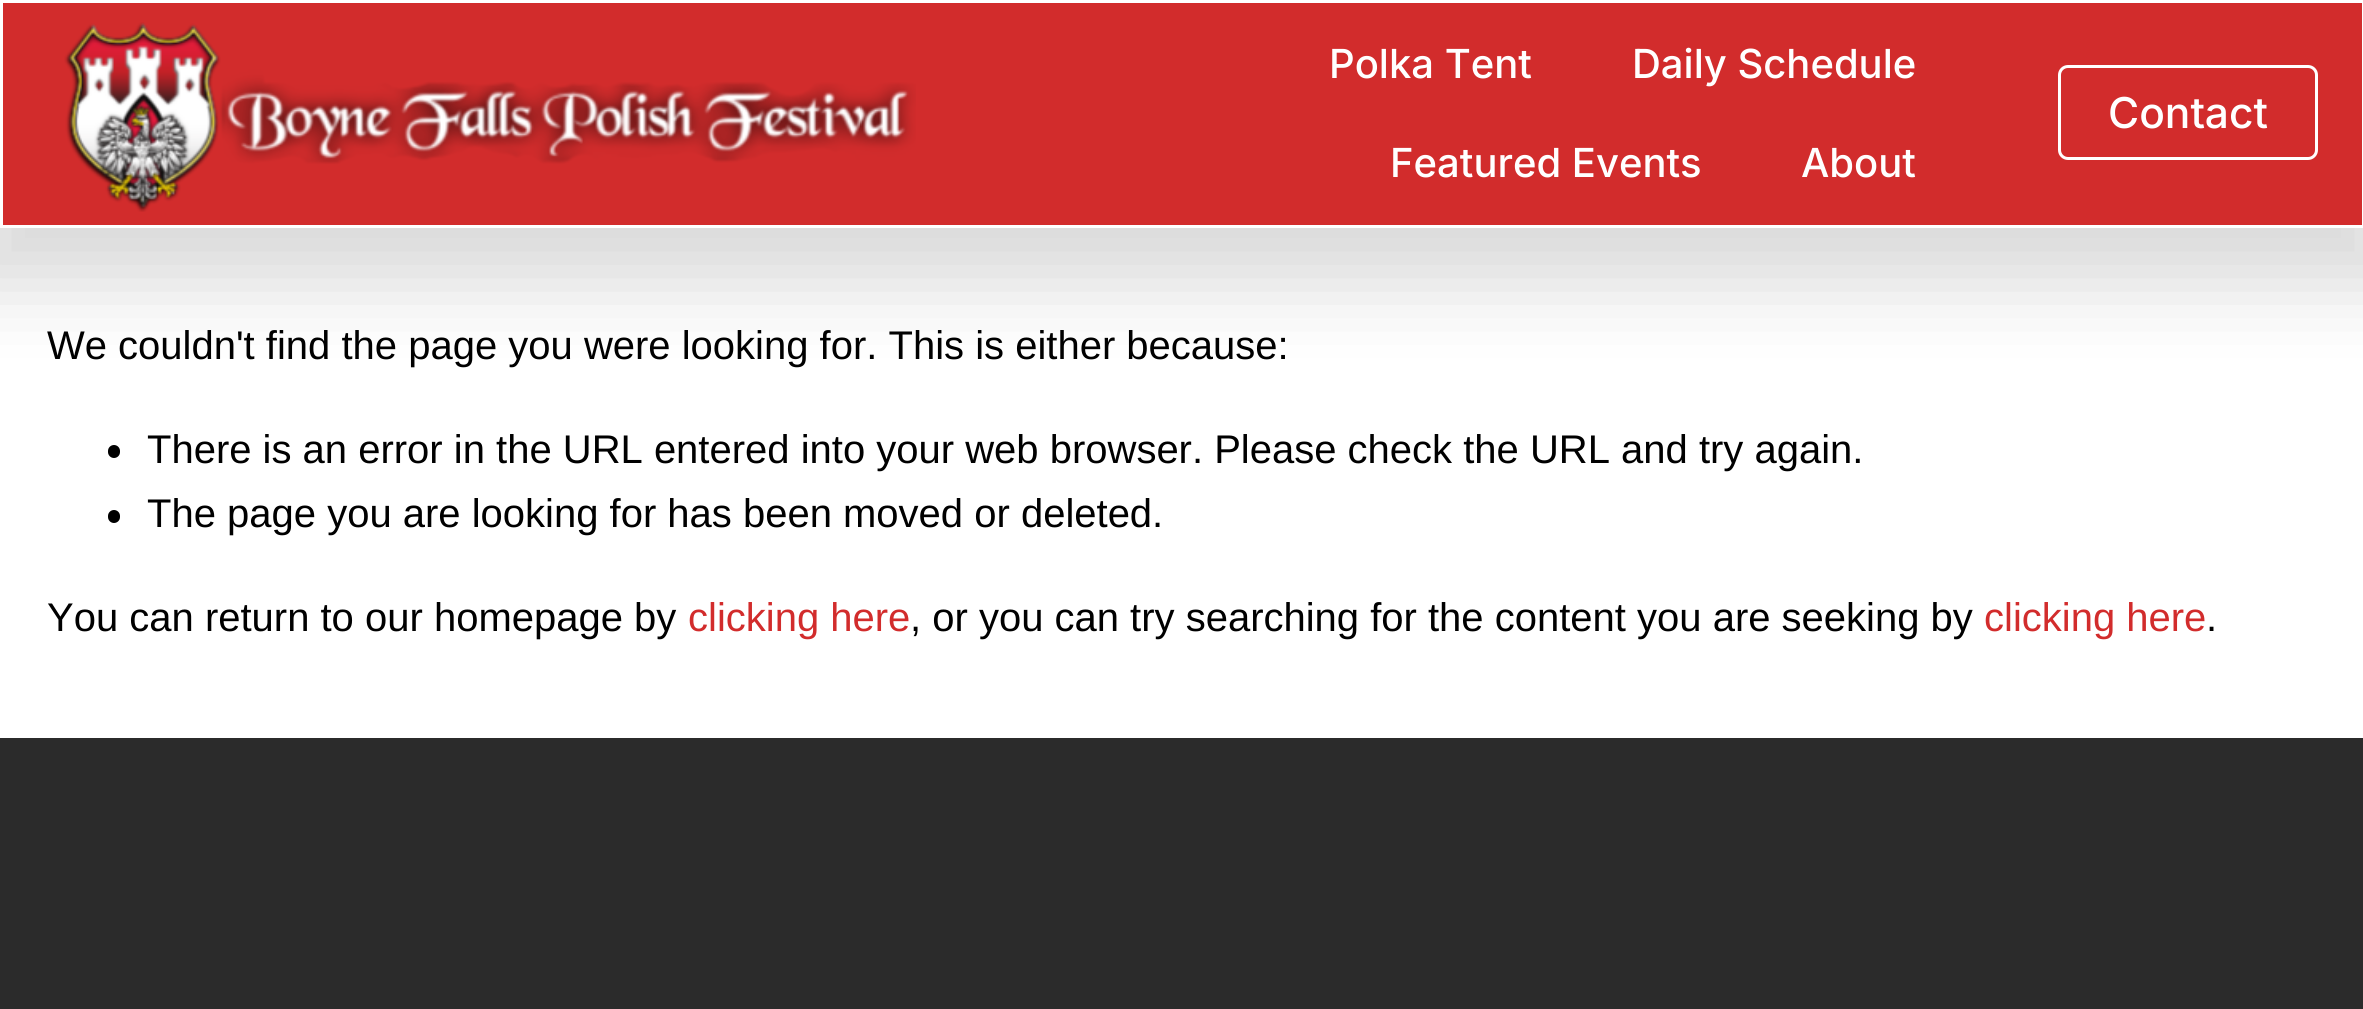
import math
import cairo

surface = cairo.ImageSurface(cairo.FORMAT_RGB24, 2363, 1009)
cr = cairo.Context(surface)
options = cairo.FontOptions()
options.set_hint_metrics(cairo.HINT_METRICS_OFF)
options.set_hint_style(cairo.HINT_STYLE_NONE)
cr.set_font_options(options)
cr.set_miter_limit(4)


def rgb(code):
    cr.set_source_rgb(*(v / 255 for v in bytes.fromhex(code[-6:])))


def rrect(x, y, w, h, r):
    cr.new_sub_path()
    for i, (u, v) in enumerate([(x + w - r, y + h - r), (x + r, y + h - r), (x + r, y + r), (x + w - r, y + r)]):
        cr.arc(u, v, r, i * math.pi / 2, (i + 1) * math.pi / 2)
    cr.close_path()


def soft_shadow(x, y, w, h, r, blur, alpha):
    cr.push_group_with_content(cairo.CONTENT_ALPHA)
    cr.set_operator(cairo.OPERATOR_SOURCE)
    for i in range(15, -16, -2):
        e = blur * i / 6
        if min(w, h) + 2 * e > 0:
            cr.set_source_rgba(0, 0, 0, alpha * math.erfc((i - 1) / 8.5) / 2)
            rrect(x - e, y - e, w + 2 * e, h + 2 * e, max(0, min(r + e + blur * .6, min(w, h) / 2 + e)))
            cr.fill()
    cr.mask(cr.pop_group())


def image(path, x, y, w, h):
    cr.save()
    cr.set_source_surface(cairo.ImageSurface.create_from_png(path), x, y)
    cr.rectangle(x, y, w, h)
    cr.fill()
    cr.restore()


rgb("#ffffff")
cr.paint()
rgb("#000000")
soft_shadow(-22, 13, 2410, 272, 0, 40, 0.15)
rgb("#d22c2c")
cr.rectangle(1.5, 1.5, 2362, 225)
cr.fill_preserve()
rgb("#ffffff")
cr.set_line_width(3)
cr.stroke()
image("img/1.png", 64, 22, 852, 190)
rrect(2059.5, 66.5, 257, 92, 8.5)
cr.stroke()
rgb("#000000")
rrect(108, 445, 12, 13, 6)
cr.fill()
rrect(108, 510, 12, 13, 6)
cr.fill()
rgb("#2b2b2b")
cr.rectangle(0, 738, 2363, 271)
cr.fill()
cr.select_font_face("Inter Medium")
cr.set_font_size(40)
rgb("#ffffff")
for x, y, s in [
    (1329, 78, "Polka Tent"),
    (1632, 78, "Daily Schedule"),
    (1390, 177, "Featured Events"),
    (1801, 177, "About"),
]:
    cr.move_to(x, y)
    cr.show_text(s)
cr.set_font_size(42.5)
cr.move_to(2108, 128)
cr.show_text("Contact")
cr.select_font_face("Liberation Sans")
cr.set_font_size(40)
rgb("#000000")
for x, y, s in [
    (47, 359, "We couldn't find the page you were looking for. This is either because:"),
    (147, 463, "There is an error in the URL entered into your web browser. Please check the URL and try again."),
    (147, 527, "The page you are looking for has been moved or deleted."),
    (47, 631, "You can return to our homepage by"),
]:
    cr.move_to(x, y)
    cr.show_text(s)
rgb("#d22c2c")
cr.move_to(688, 631)
cr.show_text("clicking here")
rgb("#000000")
cr.move_to(910, 631)
cr.show_text(", or you can try searching for the content you are seeking by")
rgb("#d22c2c")
cr.move_to(1984, 631)
cr.show_text("clicking here")
rgb("#000000")
cr.move_to(2206, 631)
cr.show_text(".")
surface.write_to_png("page.png")
